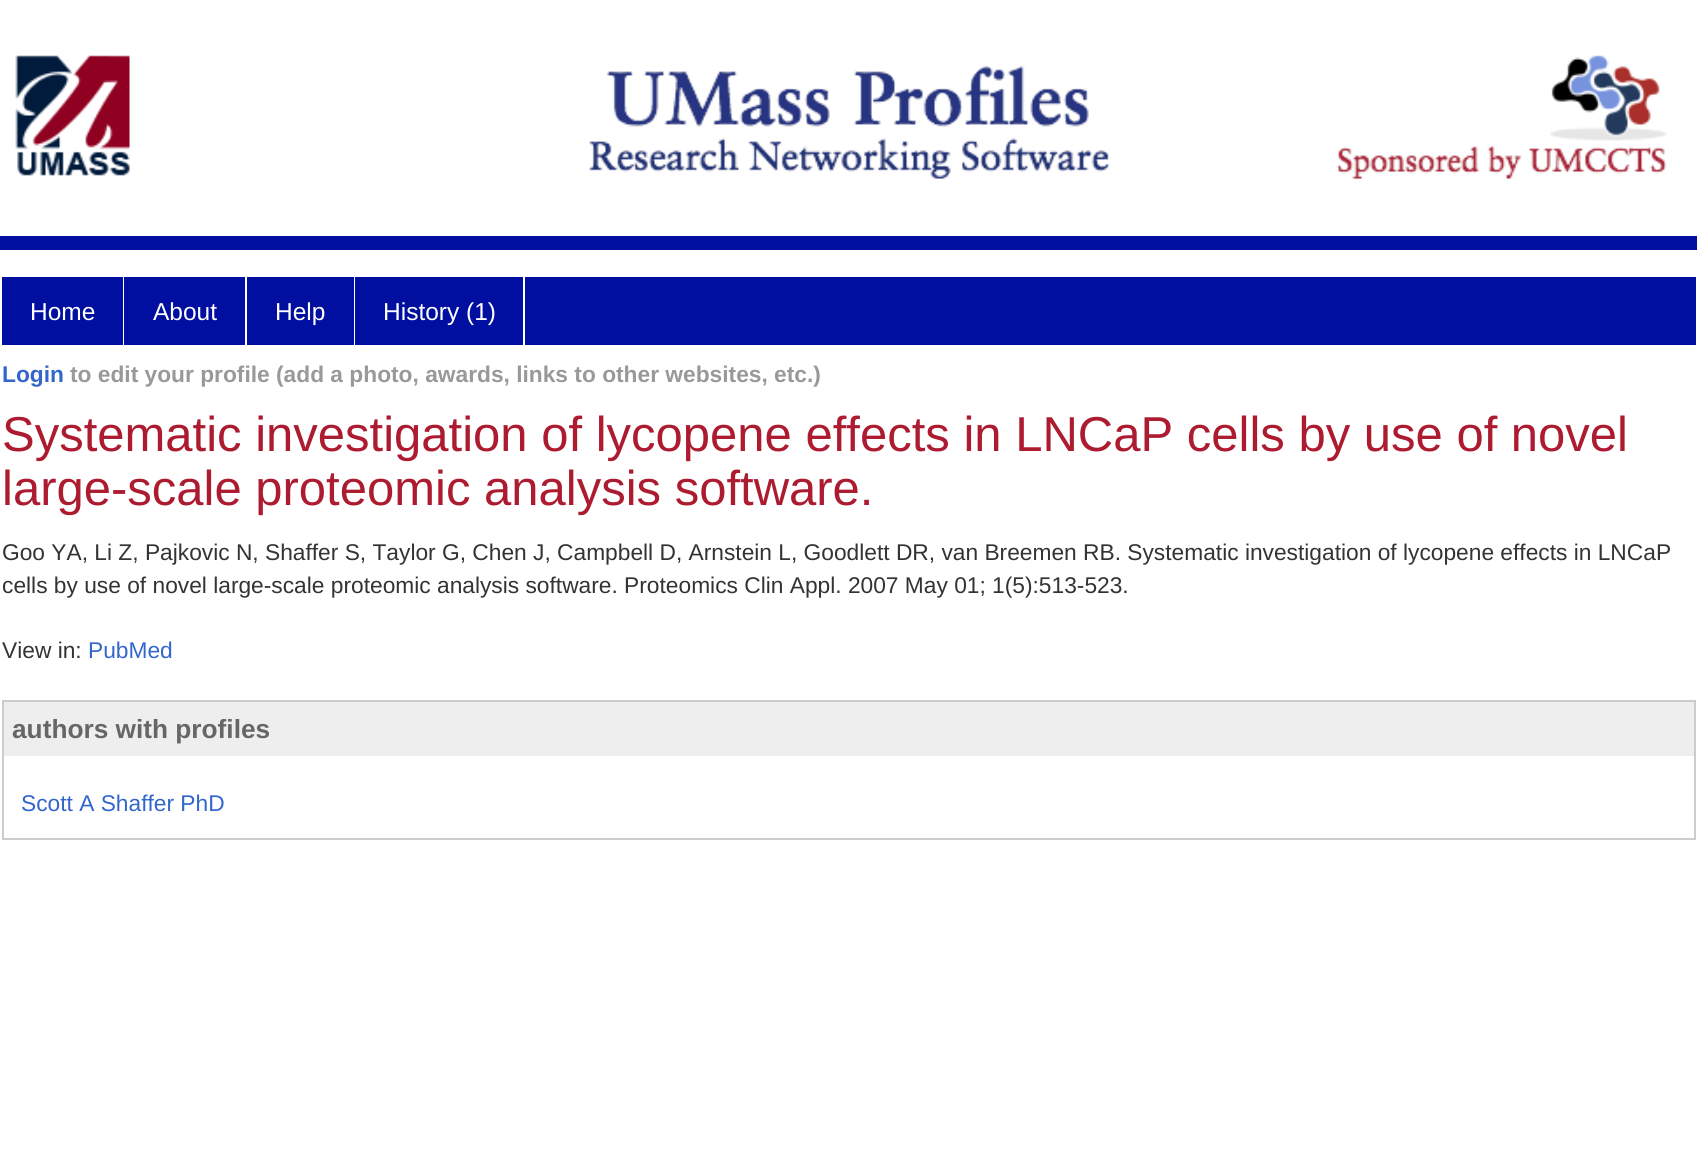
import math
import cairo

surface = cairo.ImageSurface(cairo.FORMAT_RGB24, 1697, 1167)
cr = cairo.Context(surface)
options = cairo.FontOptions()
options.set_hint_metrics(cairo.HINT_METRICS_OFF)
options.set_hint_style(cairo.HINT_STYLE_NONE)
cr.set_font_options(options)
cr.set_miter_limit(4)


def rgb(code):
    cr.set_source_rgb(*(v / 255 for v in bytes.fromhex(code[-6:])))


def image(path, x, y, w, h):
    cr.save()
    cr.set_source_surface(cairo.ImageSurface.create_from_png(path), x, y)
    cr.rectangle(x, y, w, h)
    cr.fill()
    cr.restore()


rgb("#ffffff")
cr.paint()
rgb("#000f9f")
cr.rectangle(0, 236, 1697, 14)
cr.fill()
image("img/1.png", 15, 55, 1652, 125)
for x, y, w, h, color in [
    (2, 277, 1694, 68, "#000f9f"),
    (123, 277, 1, 68, "#ffffff"),
    (245, 277, 2, 68, "#ffffff"),
    (354, 277, 1, 68, "#ffffff"),
    (523, 277, 2, 68, "#ffffff"),
]:
    rgb(color)
    cr.rectangle(x, y, w, h)
    cr.fill()
cr.rectangle(3, 701, 1692, 138)
rgb("#cccccc")
cr.stroke()
rgb("#eeeeee")
cr.rectangle(4, 702, 1690, 54)
cr.fill()
cr.select_font_face("Liberation Sans")
cr.set_font_size(24.5)
rgb("#ffffff")
for x, y, s in [
    (30, 320, "Home"),
    (153, 320, "About"),
    (275, 320, "Help"),
    (383, 320, "History (1)"),
]:
    cr.move_to(x, y)
    cr.show_text(s)
cr.select_font_face("Liberation Sans", cairo.FONT_SLANT_NORMAL, cairo.FONT_WEIGHT_BOLD)
cr.set_font_size(22.75)
rgb("#3366cc")
cr.move_to(2, 382)
cr.show_text("Login")
rgb("#999999")
cr.move_to(70, 382)
cr.show_text("to edit your profile (add a photo, awards, links to other websites, etc.)")
cr.select_font_face("Liberation Sans")
cr.set_font_size(49)
rgb("#ac1b30")
cr.move_to(2, 451)
cr.show_text("Systematic investigation of lycopene effects in LNCaP cells by use of novel")
cr.move_to(2, 505)
cr.show_text("large-scale proteomic analysis software.")
cr.set_font_size(22.75)
rgb("#333333")
for x, y, s in [
    (2, 560, "Goo YA, Li Z, Pajkovic N, Shaffer S, Taylor G, Chen J, Campbell D, Arnstein L, Goodlett DR, van Breemen RB. Systematic investigation of lycopene effects in LNCaP"),
    (2, 593, "cells by use of novel large-scale proteomic analysis software. Proteomics Clin Appl. 2007 May 01; 1(5):513-523."),
    (2, 658, "View in:"),
]:
    cr.move_to(x, y)
    cr.show_text(s)
rgb("#3366cc")
cr.move_to(88, 658)
cr.show_text("PubMed")
cr.select_font_face("Liberation Sans", cairo.FONT_SLANT_NORMAL, cairo.FONT_WEIGHT_BOLD)
cr.set_font_size(26.25)
rgb("#666666")
cr.move_to(12, 738)
cr.show_text("authors with profiles")
cr.select_font_face("Liberation Sans")
cr.set_font_size(22.75)
rgb("#3366cc")
cr.move_to(21, 811)
cr.show_text("Scott A Shaffer PhD")
surface.write_to_png("page.png")
